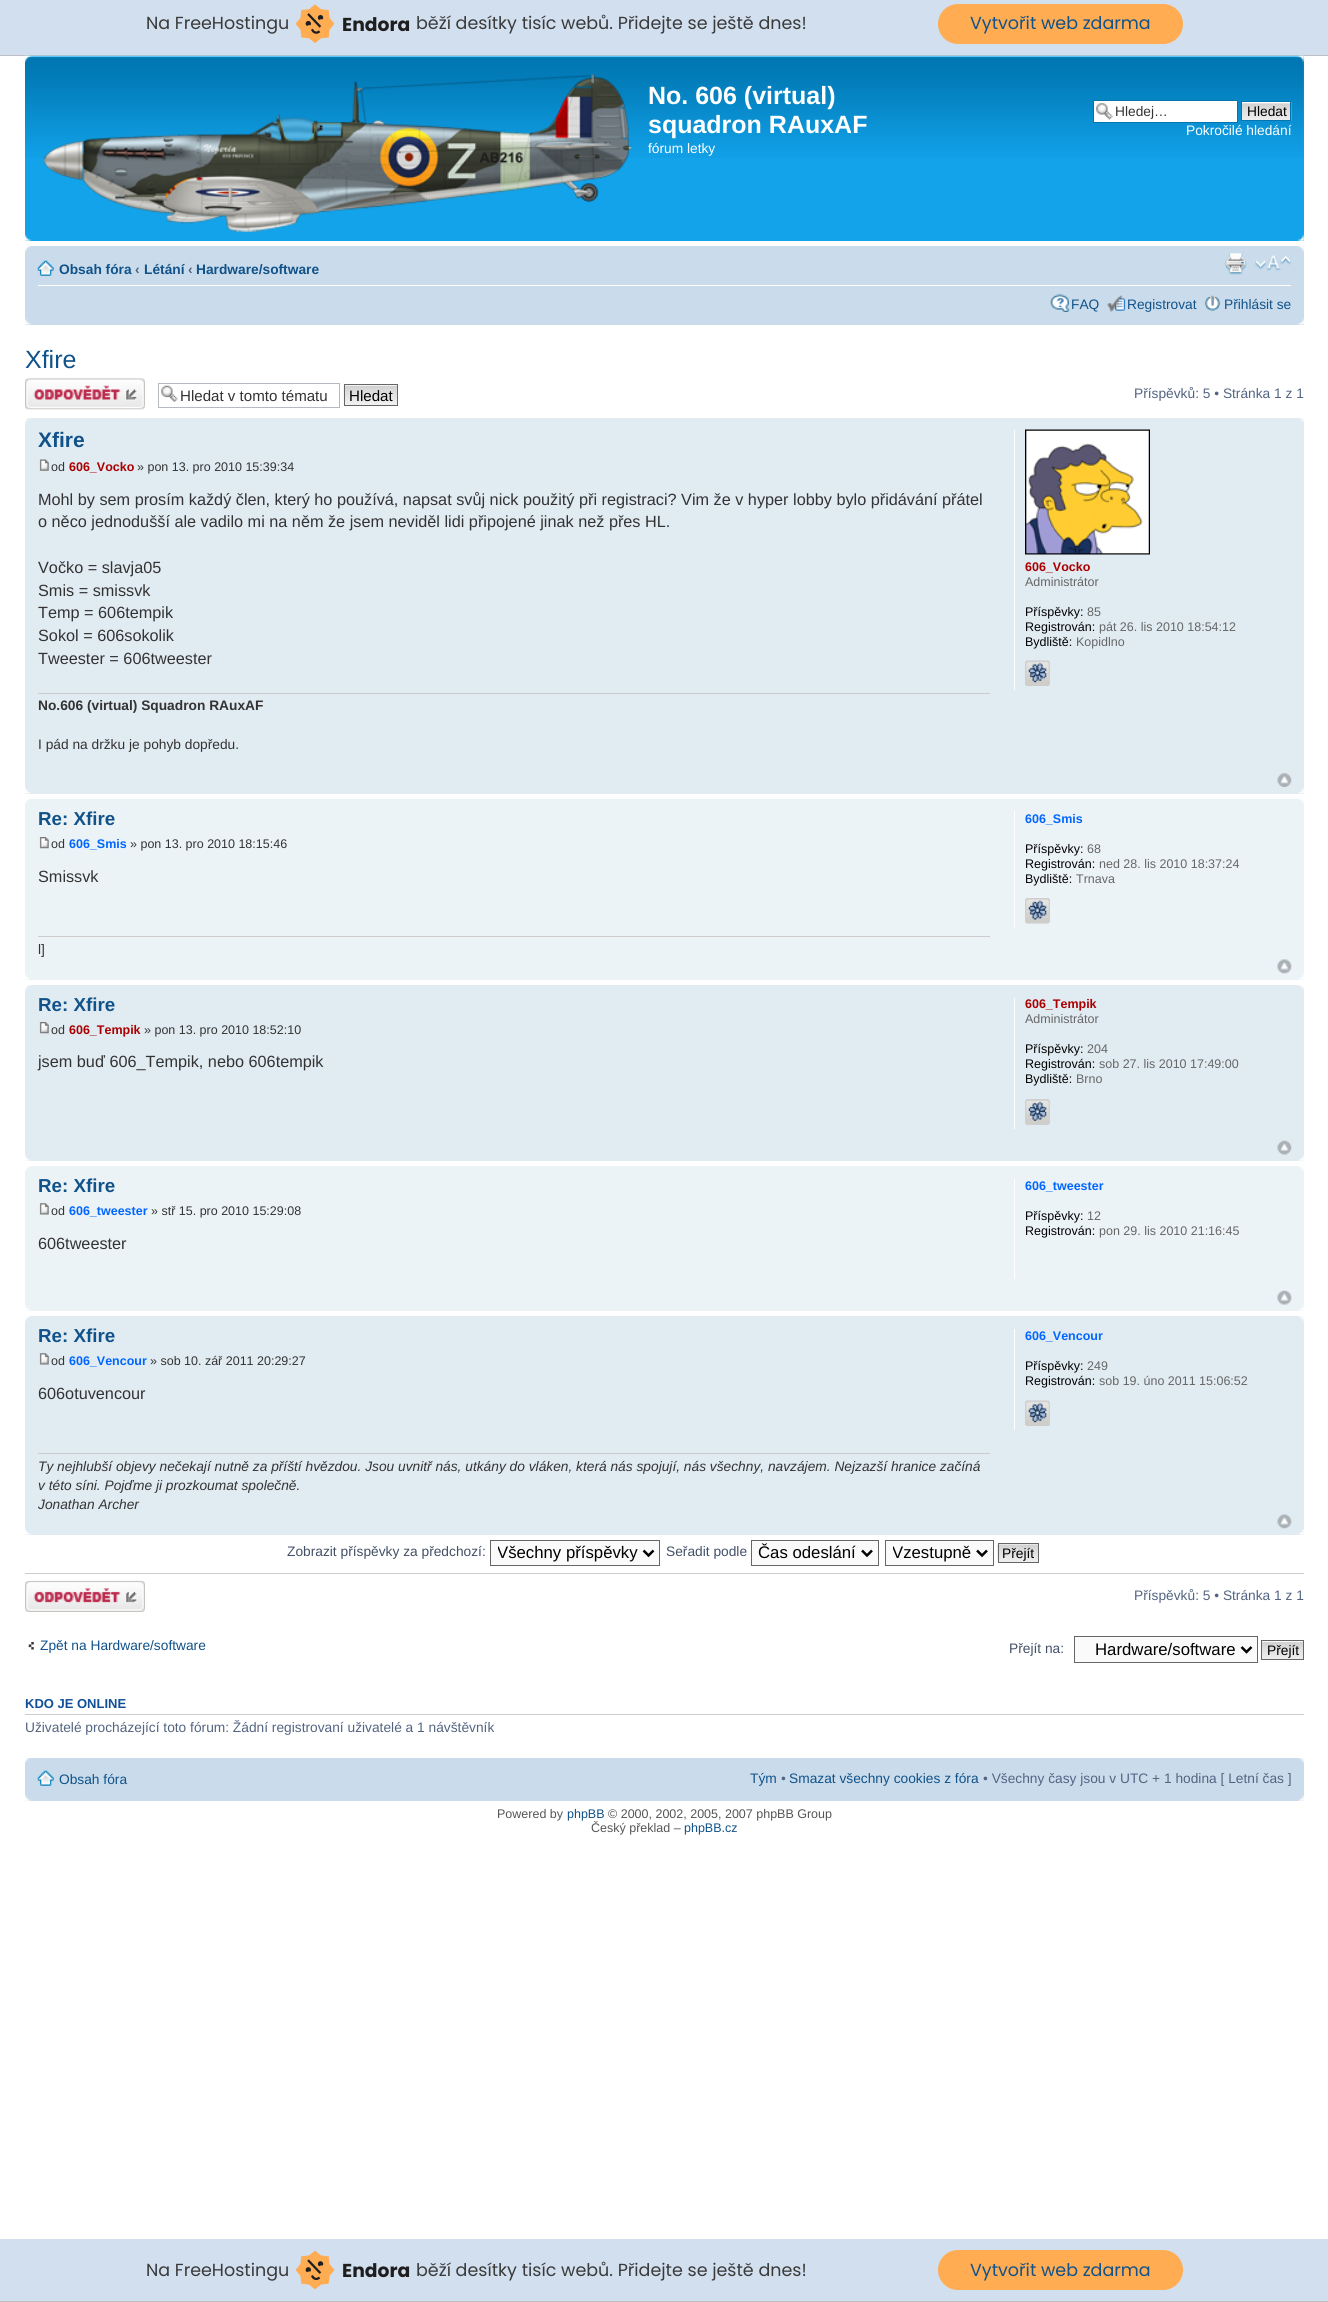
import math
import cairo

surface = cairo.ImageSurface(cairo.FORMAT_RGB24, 1328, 2302)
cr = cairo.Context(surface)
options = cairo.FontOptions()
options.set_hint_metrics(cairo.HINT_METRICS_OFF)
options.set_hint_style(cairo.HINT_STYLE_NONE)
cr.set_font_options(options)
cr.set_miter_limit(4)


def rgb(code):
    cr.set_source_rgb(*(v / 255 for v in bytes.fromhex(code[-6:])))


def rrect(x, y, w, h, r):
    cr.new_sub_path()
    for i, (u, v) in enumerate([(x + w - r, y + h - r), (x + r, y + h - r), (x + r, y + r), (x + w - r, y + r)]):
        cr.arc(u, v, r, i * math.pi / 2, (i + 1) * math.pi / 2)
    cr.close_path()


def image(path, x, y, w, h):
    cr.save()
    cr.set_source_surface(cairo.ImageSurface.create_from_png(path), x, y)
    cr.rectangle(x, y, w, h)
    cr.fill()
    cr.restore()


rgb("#ffffff")
cr.paint()
rgb("#d2dfef")
cr.rectangle(0, 0, 1328, 55)
cr.fill()
rgb("#bebfc4")
cr.rectangle(0, 55, 1328, 1)
cr.fill()
image("img/1.png", 295, 4, 40, 39)
rgb("#ffac52")
rrect(938, 4, 245, 40, 20)
cr.fill()
rgb("#12a3eb")
cr.rectangle(25, 56, 1279, 185)
cr.fill()
image("img/2.png", 25, 55, 1279, 103)
image("img/3.png", 25, 55, 7, 7)
image("img/4.png", 1297, 55, 7, 7)
image("img/5.png", 43, 74, 589, 158)
rgb("#ffffff")
cr.rectangle(1094, 101, 143, 21)
cr.fill()
image("img/6.png", 1096, 103, 17, 17)
cr.rectangle(1093.5, 100.5, 144, 22)
rgb("#0075b0")
cr.set_line_width(1)
cr.stroke()
image("img/7.png", 1242, 102, 50, 19)
cr.rectangle(1241.5, 101.5, 49, 19)
cr.stroke()
image("img/8.png", 25, 234, 7, 7)
image("img/9.png", 1297, 234, 7, 7)
rgb("#cadceb")
cr.rectangle(25, 246, 1279, 79)
cr.fill()
image("img/10.png", 25, 246, 7, 6)
image("img/11.png", 1297, 246, 7, 6)
rgb("#ffffff")
cr.rectangle(38, 285, 1253, 1)
cr.fill()
image("img/12.png", 37, 260, 17, 16)
image("img/13.png", 1225, 253, 22, 22)
image("img/14.png", 1255, 255, 36, 16)
image("img/15.png", 1050, 294, 20, 18)
image("img/16.png", 1107, 295, 19, 17)
image("img/17.png", 1204, 295, 17, 16)
image("img/18.png", 25, 318, 6, 7)
image("img/19.png", 1297, 318, 7, 7)
image("img/20.png", 25, 378, 120, 32)
image("img/21.png", 161, 385, 17, 17)
cr.rectangle(158.5, 383.5, 181, 24)
rgb("#b4bac0")
cr.stroke()
image("img/22.png", 343, 385, 54, 21)
cr.rectangle(344.5, 384.5, 53, 21)
rgb("#666666")
cr.stroke()
rgb("#e1ebf2")
cr.rectangle(25, 418, 1279, 376)
cr.fill()
image("img/23.png", 25, 418, 5, 5)
image("img/24.png", 1299, 418, 5, 5)
image("img/25.png", 39, 459, 10, 12)
rgb("#cccccc")
cr.rectangle(38, 693, 952, 1)
cr.fill()
rgb("#ffffff")
cr.rectangle(1014, 430, 1, 260)
cr.fill()
image("img/26.png", 1025, 429, 125, 126)
image("img/27.png", 1025, 660, 25, 26)
image("img/28.png", 1025, 660, 25, 26)
image("img/29.png", 1277, 773, 15, 14)
image("img/30.png", 25, 787, 6, 7)
image("img/31.png", 1298, 787, 6, 7)
rgb("#ecf3f7")
cr.rectangle(25, 799, 1279, 181)
cr.fill()
image("img/32.png", 25, 799, 5, 5)
image("img/33.png", 1299, 799, 5, 5)
image("img/34.png", 39, 837, 10, 12)
rgb("#cccccc")
cr.rectangle(38, 936, 952, 1)
cr.fill()
rgb("#ffffff")
cr.rectangle(1014, 811, 1, 117)
cr.fill()
image("img/35.png", 1025, 898, 25, 26)
image("img/36.png", 1025, 898, 25, 26)
image("img/37.png", 1277, 959, 15, 15)
image("img/38.png", 25, 974, 5, 6)
image("img/39.png", 1298, 974, 6, 6)
rgb("#e1ebf2")
cr.rectangle(25, 985, 1279, 176)
cr.fill()
image("img/40.png", 25, 985, 6, 6)
image("img/41.png", 1298, 985, 6, 5)
image("img/42.png", 39, 1022, 10, 12)
rgb("#ffffff")
cr.rectangle(1014, 998, 1, 131)
cr.fill()
image("img/43.png", 1025, 1099, 25, 26)
image("img/44.png", 1025, 1099, 25, 26)
image("img/45.png", 1277, 1140, 15, 15)
image("img/46.png", 25, 1155, 6, 6)
image("img/47.png", 1298, 1155, 6, 6)
rgb("#ecf3f7")
cr.rectangle(25, 1166, 1279, 145)
cr.fill()
image("img/48.png", 25, 1166, 6, 6)
image("img/49.png", 1298, 1166, 6, 5)
image("img/50.png", 39, 1203, 10, 12)
rgb("#ffffff")
cr.rectangle(1014, 1179, 1, 100)
cr.fill()
image("img/51.png", 1277, 1290, 15, 15)
image("img/52.png", 25, 1305, 6, 6)
image("img/53.png", 1298, 1305, 6, 6)
rgb("#e1ebf2")
cr.rectangle(25, 1316, 1279, 219)
cr.fill()
image("img/54.png", 25, 1316, 6, 6)
image("img/55.png", 1298, 1316, 6, 6)
image("img/56.png", 39, 1353, 10, 12)
rgb("#cccccc")
cr.rectangle(38, 1453, 952, 1)
cr.fill()
rgb("#ffffff")
cr.rectangle(1014, 1329, 1, 101)
cr.fill()
image("img/27.png", 1025, 1400, 25, 26)
image("img/28.png", 1025, 1400, 25, 26)
image("img/57.png", 1277, 1514, 15, 15)
image("img/58.png", 25, 1528, 6, 7)
image("img/59.png", 1298, 1529, 6, 6)
rgb("#fafafa")
cr.rectangle(490.5, 1540.5, 169, 25)
cr.fill_preserve()
rgb("#666666")
cr.stroke()
cr.new_path()
cr.move_to(643.5, 1550.5)
cr.line_to(648.5, 1555.5)
cr.line_to(653.5, 1550.5)
rgb("#000000")
cr.set_line_width(2.5)
cr.stroke()
rgb("#fafafa")
cr.rectangle(751.5, 1540.5, 127, 25)
cr.fill_preserve()
rgb("#666666")
cr.set_line_width(1)
cr.stroke()
cr.new_path()
cr.move_to(862, 1550.5)
cr.line_to(867, 1555.5)
cr.line_to(872, 1550.5)
rgb("#000000")
cr.set_line_width(2.5)
cr.stroke()
rgb("#fafafa")
cr.rectangle(885.5, 1540.5, 108, 25)
cr.fill_preserve()
rgb("#666666")
cr.set_line_width(1)
cr.stroke()
cr.new_path()
cr.move_to(977, 1550.5)
cr.line_to(982, 1555.5)
cr.line_to(987, 1550.5)
rgb("#000000")
cr.set_line_width(2.5)
cr.stroke()
image("img/60.png", 997, 1544, 41, 18)
cr.rectangle(998.5, 1543.5, 40, 19)
rgb("#666666")
cr.set_line_width(1)
cr.stroke()
rgb("#cccccc")
cr.rectangle(25, 1573, 1279, 1)
cr.fill()
image("img/61.png", 25, 1580, 120, 32)
image("img/62.png", 28, 1642, 6, 8)
rgb("#fafafa")
cr.rectangle(1074.5, 1636.5, 183, 26)
cr.fill_preserve()
rgb("#666666")
cr.stroke()
cr.new_path()
cr.move_to(1241.5, 1647)
cr.line_to(1246.5, 1652)
cr.line_to(1251.5, 1647)
rgb("#000000")
cr.set_line_width(2.5)
cr.stroke()
rgb("#fafafa")
cr.rectangle(1262, 1641, 41, 1)
cr.fill()
image("img/63.png", 1262, 1642, 41, 17)
cr.rectangle(1261.5, 1640.5, 42, 19)
rgb("#666666")
cr.set_line_width(1)
cr.stroke()
rgb("#cccccc")
cr.rectangle(25, 1714, 1279, 1)
cr.fill()
rgb("#cadceb")
cr.rectangle(25, 1758, 1279, 43)
cr.fill()
image("img/64.png", 25, 1758, 6, 5)
image("img/65.png", 1298, 1758, 6, 5)
image("img/66.png", 37, 1770, 17, 16)
image("img/67.png", 25, 1794, 6, 7)
image("img/68.png", 1297, 1794, 7, 7)
rgb("#d2dfef")
cr.rectangle(0, 2239, 1328, 62)
cr.fill()
rgb("#bebfc4")
cr.rectangle(0, 2301, 1328, 1)
cr.fill()
image("img/69.png", 295, 2250, 40, 40)
rgb("#ffac52")
rrect(938, 2250, 245, 40, 20)
cr.fill()
cr.select_font_face("Poppins")
cr.set_font_size(17.5)
rgb("#3a3a3a")
cr.move_to(146, 29)
cr.show_text("Na FreeHostingu")
cr.select_font_face("Poppins", cairo.FONT_SLANT_NORMAL, cairo.FONT_WEIGHT_BOLD)
cr.set_font_size(18.75)
rgb("#1e1e1e")
cr.move_to(342, 31)
cr.show_text("Endora")
cr.select_font_face("Poppins")
cr.set_font_size(17.5)
rgb("#3a3a3a")
cr.move_to(416, 29)
cr.show_text("běží desítky tisíc webů. Přidejte se ještě dnes!")
rgb("#105289")
cr.move_to(970, 29)
cr.show_text("Vytvořit web zdarma")
cr.select_font_face("Liberation Sans", cairo.FONT_SLANT_NORMAL, cairo.FONT_WEIGHT_BOLD)
cr.set_font_size(25)
rgb("#ffffff")
cr.move_to(648, 104)
cr.show_text("No. 606 (virtual)")
cr.move_to(648, 133)
cr.show_text("squadron RAuxAF")
cr.select_font_face("Liberation Sans")
cr.set_font_size(13.75)
cr.move_to(648, 153)
cr.show_text("fórum letky")
rgb("#333333")
cr.move_to(1115, 116)
cr.show_text("Hledej…")
rgb("#000000")
cr.move_to(1247, 116)
cr.show_text("Hledat")
rgb("#ffffff")
cr.move_to(1186, 135)
cr.show_text("Pokročilé hledání")
cr.select_font_face("Liberation Sans", cairo.FONT_SLANT_NORMAL, cairo.FONT_WEIGHT_BOLD)
rgb("#105289")
cr.move_to(59, 274)
cr.show_text("Obsah fóra")
rgb("#536482")
cr.move_to(135, 274)
cr.show_text("‹")
rgb("#105289")
cr.move_to(144, 274)
cr.show_text("Létání")
rgb("#536482")
cr.move_to(188, 274)
cr.show_text("‹")
rgb("#105289")
cr.move_to(196, 274)
cr.show_text("Hardware/software")
cr.select_font_face("Liberation Sans")
for x, y, s in [
    (1071, 309, "FAQ"),
    (1127, 309, "Registrovat"),
    (1224, 309, "Přihlásit se"),
]:
    cr.move_to(x, y)
    cr.show_text(s)
cr.set_font_size(25)
cr.move_to(25, 368)
cr.show_text("Xfire")
cr.set_font_size(15.1)
rgb("#333333")
cr.move_to(180, 401)
cr.show_text("Hledat v tomto tématu")
rgb("#000000")
cr.move_to(349, 401)
cr.show_text("Hledat")
cr.set_font_size(13.75)
rgb("#536482")
cr.move_to(1134, 398)
cr.show_text("Příspěvků: 5 • Stránka 1 z 1")
cr.select_font_face("Liberation Sans", cairo.FONT_SLANT_NORMAL, cairo.FONT_WEIGHT_BOLD)
cr.set_font_size(21)
rgb("#105289")
cr.move_to(38, 447)
cr.show_text("Xfire")
cr.select_font_face("Liberation Sans")
cr.set_font_size(12.5)
rgb("#333333")
cr.move_to(51, 471)
cr.show_text("od")
cr.select_font_face("Liberation Sans", cairo.FONT_SLANT_NORMAL, cairo.FONT_WEIGHT_BOLD)
rgb("#aa0000")
cr.move_to(69, 471)
cr.show_text("606_Vocko")
cr.select_font_face("Liberation Sans")
rgb("#333333")
cr.move_to(137, 471)
cr.show_text("» pon 13. pro 2010 15:39:34")
cr.set_font_size(16.25)
for x, y, s in [
    (38, 505, "Mohl by sem prosím každý člen, který ho používá, napsat svůj nick použitý při registraci? Vim že v hyper lobby bylo přidávání přátel"),
    (38, 527, "o něco jednodušší ale vadilo mi na něm že jsem neviděl lidi připojené jinak než přes HL."),
    (38, 573, "Vočko = slavja05"),
    (38, 596, "Smis = smissvk"),
    (38, 618, "Temp = 606tempik"),
    (38, 641, "Sokol = 606sokolik"),
    (38, 664, "Tweester = 606tweester"),
]:
    cr.move_to(x, y)
    cr.show_text(s)
cr.select_font_face("Liberation Sans", cairo.FONT_SLANT_NORMAL, cairo.FONT_WEIGHT_BOLD)
cr.set_font_size(13.75)
cr.move_to(38, 710)
cr.show_text("No.606 (virtual) Squadron RAuxAF")
cr.select_font_face("Liberation Sans")
cr.move_to(38, 749)
cr.show_text("I pád na držku je pohyb dopředu.")
cr.select_font_face("Liberation Sans", cairo.FONT_SLANT_NORMAL, cairo.FONT_WEIGHT_BOLD)
cr.set_font_size(12.5)
rgb("#aa0000")
cr.move_to(1025, 571)
cr.show_text("606_Vocko")
cr.select_font_face("Liberation Sans")
rgb("#666666")
cr.move_to(1025, 586)
cr.show_text("Administrátor")
rgb("#000000")
cr.move_to(1025, 616)
cr.show_text("Příspěvky:")
rgb("#666666")
cr.move_to(1087, 616)
cr.show_text("85")
rgb("#000000")
cr.move_to(1025, 631)
cr.show_text("Registrován:")
rgb("#666666")
cr.move_to(1099, 631)
cr.show_text("pát 26. lis 2010 18:54:12")
rgb("#000000")
cr.move_to(1025, 646)
cr.show_text("Bydliště:")
rgb("#666666")
cr.move_to(1076, 646)
cr.show_text("Kopidlno")
cr.select_font_face("Liberation Sans", cairo.FONT_SLANT_NORMAL, cairo.FONT_WEIGHT_BOLD)
cr.set_font_size(18.75)
rgb("#105289")
cr.move_to(38, 825)
cr.show_text("Re: Xfire")
cr.select_font_face("Liberation Sans")
cr.set_font_size(12.5)
rgb("#333333")
cr.move_to(51, 848)
cr.show_text("od")
cr.select_font_face("Liberation Sans", cairo.FONT_SLANT_NORMAL, cairo.FONT_WEIGHT_BOLD)
rgb("#0066ff")
cr.move_to(69, 848)
cr.show_text("606_Smis")
cr.select_font_face("Liberation Sans")
rgb("#333333")
cr.move_to(130, 848)
cr.show_text("» pon 13. pro 2010 18:15:46")
cr.set_font_size(16.25)
cr.move_to(38, 882)
cr.show_text("Smissvk")
cr.set_font_size(13.75)
cr.move_to(38, 954)
cr.show_text("l]")
cr.select_font_face("Liberation Sans", cairo.FONT_SLANT_NORMAL, cairo.FONT_WEIGHT_BOLD)
cr.set_font_size(12.5)
rgb("#0066ff")
cr.move_to(1025, 823)
cr.show_text("606_Smis")
cr.select_font_face("Liberation Sans")
rgb("#000000")
cr.move_to(1025, 853)
cr.show_text("Příspěvky:")
rgb("#666666")
cr.move_to(1087, 853)
cr.show_text("68")
rgb("#000000")
cr.move_to(1025, 868)
cr.show_text("Registrován:")
rgb("#666666")
cr.move_to(1099, 868)
cr.show_text("ned 28. lis 2010 18:37:24")
rgb("#000000")
cr.move_to(1025, 883)
cr.show_text("Bydliště:")
rgb("#666666")
cr.move_to(1076, 883)
cr.show_text("Trnava")
cr.select_font_face("Liberation Sans", cairo.FONT_SLANT_NORMAL, cairo.FONT_WEIGHT_BOLD)
cr.set_font_size(18.75)
rgb("#105289")
cr.move_to(38, 1011)
cr.show_text("Re: Xfire")
cr.select_font_face("Liberation Sans")
cr.set_font_size(12.5)
rgb("#333333")
cr.move_to(51, 1034)
cr.show_text("od")
cr.select_font_face("Liberation Sans", cairo.FONT_SLANT_NORMAL, cairo.FONT_WEIGHT_BOLD)
rgb("#aa0000")
cr.move_to(69, 1034)
cr.show_text("606_Tempik")
cr.select_font_face("Liberation Sans")
rgb("#333333")
cr.move_to(144, 1034)
cr.show_text("» pon 13. pro 2010 18:52:10")
cr.set_font_size(16.25)
cr.move_to(38, 1067)
cr.show_text("jsem buď 606_Tempik, nebo 606tempik")
cr.select_font_face("Liberation Sans", cairo.FONT_SLANT_NORMAL, cairo.FONT_WEIGHT_BOLD)
cr.set_font_size(12.5)
rgb("#aa0000")
cr.move_to(1025, 1008)
cr.show_text("606_Tempik")
cr.select_font_face("Liberation Sans")
rgb("#666666")
cr.move_to(1025, 1023)
cr.show_text("Administrátor")
rgb("#000000")
cr.move_to(1025, 1053)
cr.show_text("Příspěvky:")
rgb("#666666")
cr.move_to(1087, 1053)
cr.show_text("204")
rgb("#000000")
cr.move_to(1025, 1068)
cr.show_text("Registrován:")
rgb("#666666")
cr.move_to(1099, 1068)
cr.show_text("sob 27. lis 2010 17:49:00")
rgb("#000000")
cr.move_to(1025, 1083)
cr.show_text("Bydliště:")
rgb("#666666")
cr.move_to(1076, 1083)
cr.show_text("Brno")
cr.select_font_face("Liberation Sans", cairo.FONT_SLANT_NORMAL, cairo.FONT_WEIGHT_BOLD)
cr.set_font_size(18.75)
rgb("#105289")
cr.move_to(38, 1192)
cr.show_text("Re: Xfire")
cr.select_font_face("Liberation Sans")
cr.set_font_size(12.5)
rgb("#333333")
cr.move_to(51, 1215)
cr.show_text("od")
cr.select_font_face("Liberation Sans", cairo.FONT_SLANT_NORMAL, cairo.FONT_WEIGHT_BOLD)
rgb("#0066ff")
cr.move_to(69, 1215)
cr.show_text("606_tweester")
cr.select_font_face("Liberation Sans")
rgb("#333333")
cr.move_to(151, 1215)
cr.show_text("» stř 15. pro 2010 15:29:08")
cr.set_font_size(16.25)
cr.move_to(38, 1249)
cr.show_text("606tweester")
cr.select_font_face("Liberation Sans", cairo.FONT_SLANT_NORMAL, cairo.FONT_WEIGHT_BOLD)
cr.set_font_size(12.5)
rgb("#0066ff")
cr.move_to(1025, 1190)
cr.show_text("606_tweester")
cr.select_font_face("Liberation Sans")
rgb("#000000")
cr.move_to(1025, 1220)
cr.show_text("Příspěvky:")
rgb("#666666")
cr.move_to(1087, 1220)
cr.show_text("12")
rgb("#000000")
cr.move_to(1025, 1235)
cr.show_text("Registrován:")
rgb("#666666")
cr.move_to(1099, 1235)
cr.show_text("pon 29. lis 2010 21:16:45")
cr.select_font_face("Liberation Sans", cairo.FONT_SLANT_NORMAL, cairo.FONT_WEIGHT_BOLD)
cr.set_font_size(18.75)
rgb("#105289")
cr.move_to(38, 1342)
cr.show_text("Re: Xfire")
cr.select_font_face("Liberation Sans")
cr.set_font_size(12.5)
rgb("#333333")
cr.move_to(51, 1365)
cr.show_text("od")
cr.select_font_face("Liberation Sans", cairo.FONT_SLANT_NORMAL, cairo.FONT_WEIGHT_BOLD)
rgb("#0066ff")
cr.move_to(69, 1365)
cr.show_text("606_Vencour")
cr.select_font_face("Liberation Sans")
rgb("#333333")
cr.move_to(150, 1365)
cr.show_text("» sob 10. zář 2011 20:29:27")
cr.set_font_size(16.25)
cr.move_to(38, 1399)
cr.show_text("606otuvencour")
cr.select_font_face("Liberation Sans", cairo.FONT_SLANT_ITALIC)
cr.set_font_size(13.75)
for x, y, s in [
    (38, 1471, "Ty nejhlubší objevy nečekají nutně za příští hvězdou. Jsou uvnitř nás, utkány do vláken, která nás spojují, nás všechny, navzájem. Nejzazší hranice začíná"),
    (38, 1490, "v této síni. Pojďme ji prozkoumat společně."),
    (38, 1509, "Jonathan Archer"),
]:
    cr.move_to(x, y)
    cr.show_text(s)
cr.select_font_face("Liberation Sans", cairo.FONT_SLANT_NORMAL, cairo.FONT_WEIGHT_BOLD)
cr.set_font_size(12.5)
rgb("#0066ff")
cr.move_to(1025, 1340)
cr.show_text("606_Vencour")
cr.select_font_face("Liberation Sans")
rgb("#000000")
cr.move_to(1025, 1370)
cr.show_text("Příspěvky:")
rgb("#666666")
cr.move_to(1087, 1370)
cr.show_text("249")
rgb("#000000")
cr.move_to(1025, 1385)
cr.show_text("Registrován:")
rgb("#666666")
cr.move_to(1099, 1385)
cr.show_text("sob 19. úno 2011 15:06:52")
cr.set_font_size(13.75)
rgb("#425067")
cr.move_to(287, 1556)
cr.show_text("Zobrazit příspěvky za předchozí:")
cr.save()
cr.rectangle(498, 1543, 140, 21)
cr.clip()
cr.set_font_size(16.75)
rgb("#000000")
cr.move_to(497, 1558)
cr.show_text("Všechny příspěvky")
cr.restore()
cr.move_to(666, 1556)
cr.show_text("Seřadit podle")
cr.set_font_size(16.75)
rgb("#000000")
cr.move_to(758, 1558)
cr.show_text("Čas odeslání")
cr.save()
cr.rectangle(893, 1543, 78, 21)
cr.clip()
cr.move_to(892, 1558)
cr.show_text("Vzestupně")
cr.restore()
cr.set_font_size(13.75)
cr.move_to(1002, 1558)
cr.show_text("Přejít")
rgb("#536482")
cr.move_to(1134, 1600)
cr.show_text("Příspěvků: 5 • Stránka 1 z 1")
rgb("#105289")
cr.move_to(40, 1650)
cr.show_text("Zpět na Hardware/software")
rgb("#425067")
cr.move_to(1009, 1653)
cr.show_text("Přejít na:")
cr.set_font_size(16.75)
rgb("#000000")
cr.move_to(1095, 1655)
cr.show_text("Hardware/software")
cr.set_font_size(13.75)
cr.move_to(1267, 1655)
cr.show_text("Přejít")
cr.select_font_face("Liberation Sans", cairo.FONT_SLANT_NORMAL, cairo.FONT_WEIGHT_BOLD)
cr.set_font_size(13)
rgb("#115098")
cr.move_to(25, 1708)
cr.show_text("KDO JE ONLINE")
cr.select_font_face("Liberation Sans")
cr.set_font_size(13.75)
rgb("#536482")
cr.move_to(25, 1732)
cr.show_text("Uživatelé procházející toto fórum: Žádní registrovaní uživatelé a 1 návštěvník")
rgb("#105289")
cr.move_to(59, 1784)
cr.show_text("Obsah fóra")
cr.move_to(750, 1783)
cr.show_text("Tým")
rgb("#536482")
cr.move_to(781, 1783)
cr.show_text("•")
rgb("#105289")
cr.move_to(789, 1783)
cr.show_text("Smazat všechny cookies z fóra")
rgb("#536482")
cr.move_to(983, 1783)
cr.show_text("• Všechny časy jsou v UTC + 1 hodina [ Letní čas ]")
cr.set_font_size(12.5)
rgb("#555555")
cr.move_to(497, 1818)
cr.show_text("Powered by")
rgb("#105289")
cr.move_to(567, 1818)
cr.show_text("phpBB")
rgb("#555555")
cr.move_to(608, 1818)
cr.show_text("© 2000, 2002, 2005, 2007 phpBB Group")
cr.move_to(591, 1832)
cr.show_text("Český překlad –")
rgb("#105289")
cr.move_to(684, 1832)
cr.show_text("phpBB.cz")
cr.select_font_face("Poppins")
cr.set_font_size(17.5)
rgb("#3a3a3a")
cr.move_to(146, 2276)
cr.show_text("Na FreeHostingu")
cr.select_font_face("Poppins", cairo.FONT_SLANT_NORMAL, cairo.FONT_WEIGHT_BOLD)
cr.set_font_size(18.75)
rgb("#1e1e1e")
cr.move_to(342, 2277)
cr.show_text("Endora")
cr.select_font_face("Poppins")
cr.set_font_size(17.5)
rgb("#3a3a3a")
cr.move_to(416, 2276)
cr.show_text("běží desítky tisíc webů. Přidejte se ještě dnes!")
rgb("#105289")
cr.move_to(970, 2276)
cr.show_text("Vytvořit web zdarma")
surface.write_to_png("page.png")
